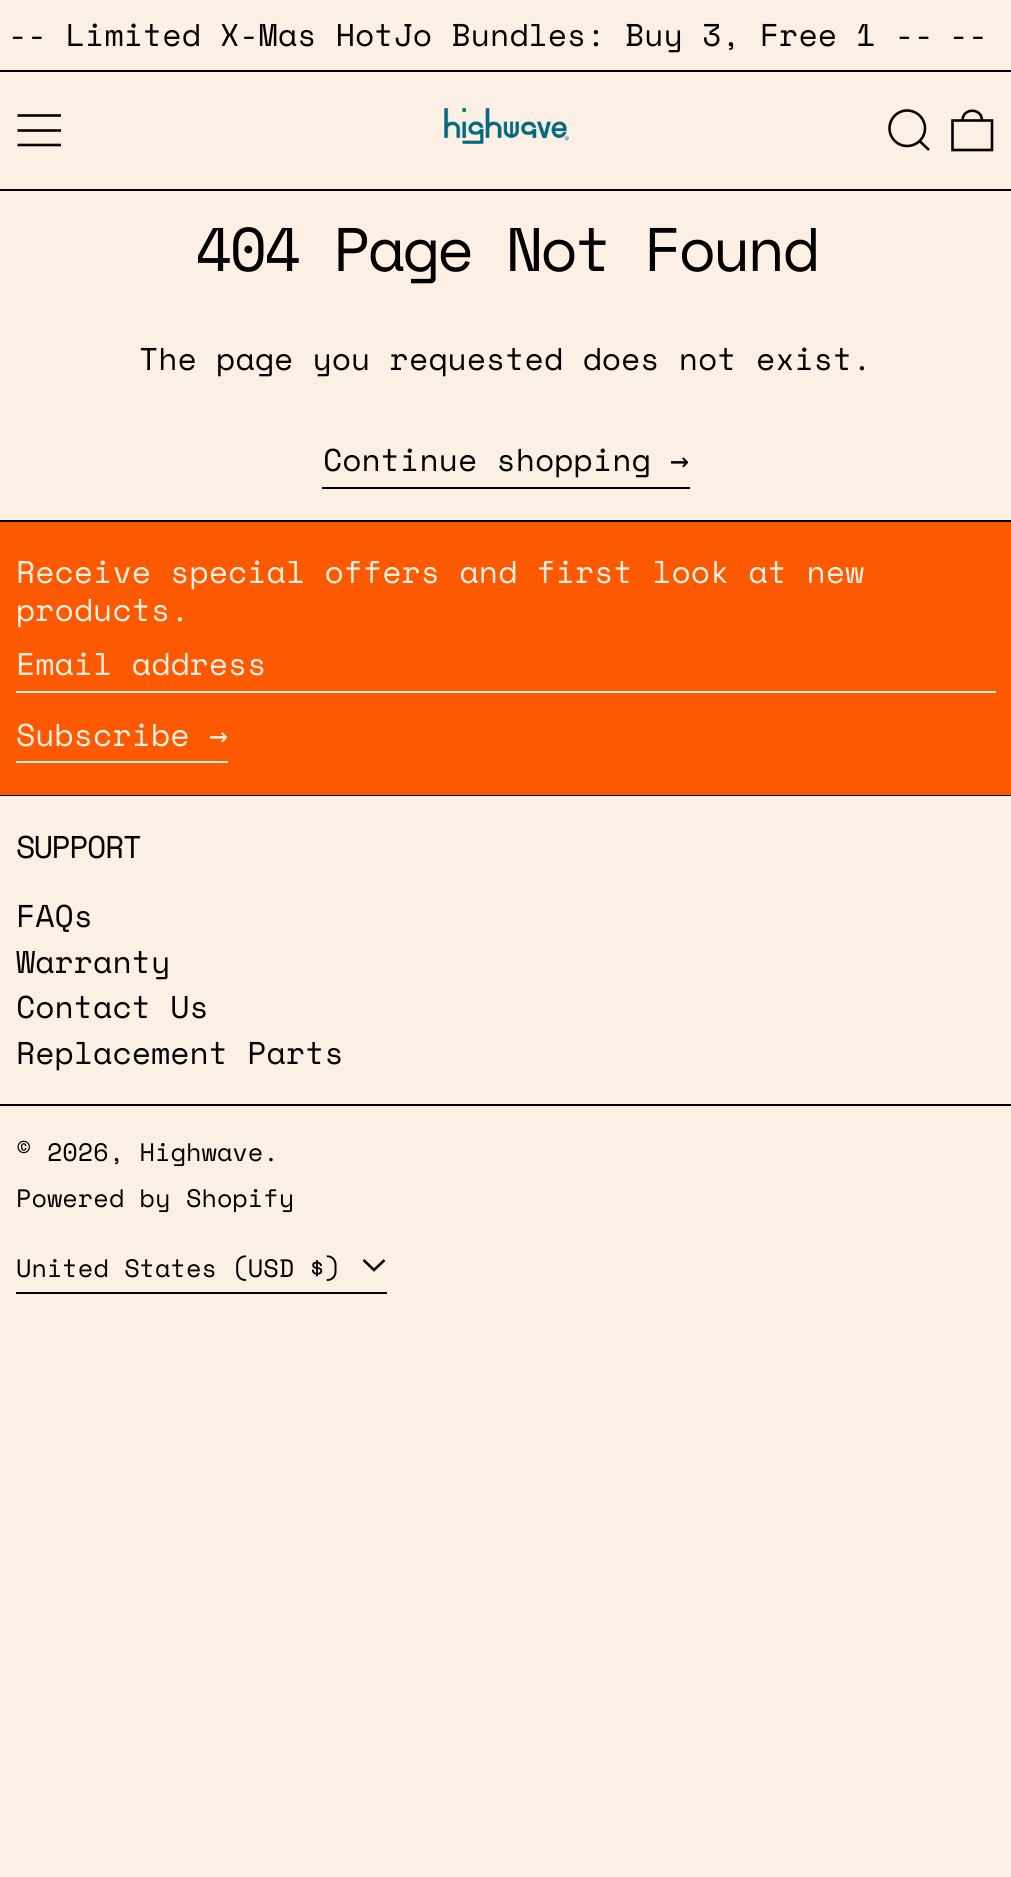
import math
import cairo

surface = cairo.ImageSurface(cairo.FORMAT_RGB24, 1011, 1877)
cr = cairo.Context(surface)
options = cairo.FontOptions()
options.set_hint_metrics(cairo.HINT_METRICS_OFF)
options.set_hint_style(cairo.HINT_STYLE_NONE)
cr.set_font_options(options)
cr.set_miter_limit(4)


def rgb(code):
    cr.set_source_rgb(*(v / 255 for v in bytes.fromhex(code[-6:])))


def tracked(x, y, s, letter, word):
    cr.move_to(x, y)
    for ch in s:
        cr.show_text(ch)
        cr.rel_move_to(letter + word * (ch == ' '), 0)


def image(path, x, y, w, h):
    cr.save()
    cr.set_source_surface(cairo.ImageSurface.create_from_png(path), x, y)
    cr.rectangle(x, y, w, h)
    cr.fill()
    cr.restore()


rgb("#fcf0e4")
cr.paint()
rgb("#000000")
cr.rectangle(0, 70, 1011, 2)
cr.fill()
cr.rectangle(0, 189, 1011, 2)
cr.fill()
cr.new_path()
cr.move_to(17.5, 115.5)
cr.line_to(61, 115.5)
cr.move_to(17.5, 130.5)
cr.line_to(61, 130.5)
cr.move_to(17.5, 145)
cr.line_to(61, 145)
cr.set_line_width(2.6)
cr.stroke()
image("img/1.png", 444, 108, 126, 36)
cr.new_path()
cr.move_to(889.5, 128.5)
cr.curve_to(889.5, 138, 897.5, 146, 907, 146)
cr.curve_to(917, 146, 925, 138, 925, 128.5)
cr.curve_to(925, 118.5, 917, 110.5, 907, 110.5)
cr.curve_to(897.5, 110.5, 889.5, 118.5, 889.5, 128.5)
cr.close_path()
cr.move_to(919.5, 141)
cr.line_to(929, 150)
cr.stroke()
cr.new_path()
cr.move_to(952.5, 120.5)
cr.line_to(992, 120.5)
cr.line_to(992, 150)
cr.line_to(952.5, 150)
cr.close_path()
cr.move_to(982, 120.5)
cr.curve_to(982, 107.5, 962.5, 107.5, 962.5, 120.5)
cr.stroke()
for x, y, w, h, color in [
    (0, 520, 1011, 2, "#000000"),
    (322, 487, 368, 2, "#000000"),
    (0, 522, 1011, 273, "#fd5901"),
    (0, 795, 1011, 1, "#000000"),
    (16, 691, 980, 2, "#fcf0e4"),
    (16, 761, 212, 2, "#fcf0e4"),
    (0, 1104, 1011, 2, "#000000"),
    (16, 1292, 371, 2, "#000000"),
]:
    rgb(color)
    cr.rectangle(x, y, w, h)
    cr.fill()
cr.new_path()
cr.move_to(363.5, 1260)
cr.line_to(374, 1270)
cr.line_to(384.5, 1260)
cr.stroke()
cr.select_font_face("Space Mono")
cr.set_font_size(31.5)
cr.move_to(8, 46)
cr.show_text("-- Limited X-Mas HotJo Bundles: Buy 3, Free 1 --")
cr.move_to(949, 46)
cr.show_text("--")
cr.set_font_size(61.5)
tracked(195, 271, "404 Page Not Found", -3.1, 0)
cr.set_font_size(31.5)
cr.move_to(139, 370)
cr.show_text("The page you requested does not exist.")
cr.move_to(323, 471)
cr.show_text("Continue shopping")
cr.select_font_face("DejaVu Sans Mono")
cr.move_to(670, 471)
cr.show_text("→")
cr.select_font_face("Space Mono")
rgb("#fcf0e4")
for x, y, s in [
    (16, 583, "Receive special offers and first look at new"),
    (16, 621, "products."),
    (16, 675, "Email address"),
    (16, 746, "Subscribe"),
]:
    cr.move_to(x, y)
    cr.show_text(s)
cr.select_font_face("DejaVu Sans Mono")
cr.move_to(209, 746)
cr.show_text("→")
cr.select_font_face("Space Mono")
rgb("#000000")
tracked(16, 858, "SUPPORT", -1.5, 0)
for x, y, s in [
    (16, 927, "FAQs"),
    (16, 973, "Warranty"),
    (16, 1018, "Contact Us"),
    (16, 1064, "Replacement Parts"),
]:
    cr.move_to(x, y)
    cr.show_text(s)
cr.set_font_size(25.25)
for x, y, s in [
    (16, 1161, "© 2026, Highwave."),
    (16, 1207, "Powered by Shopify"),
    (16, 1277, "United States (USD $)"),
]:
    cr.move_to(x, y)
    cr.show_text(s)
surface.write_to_png("page.png")
